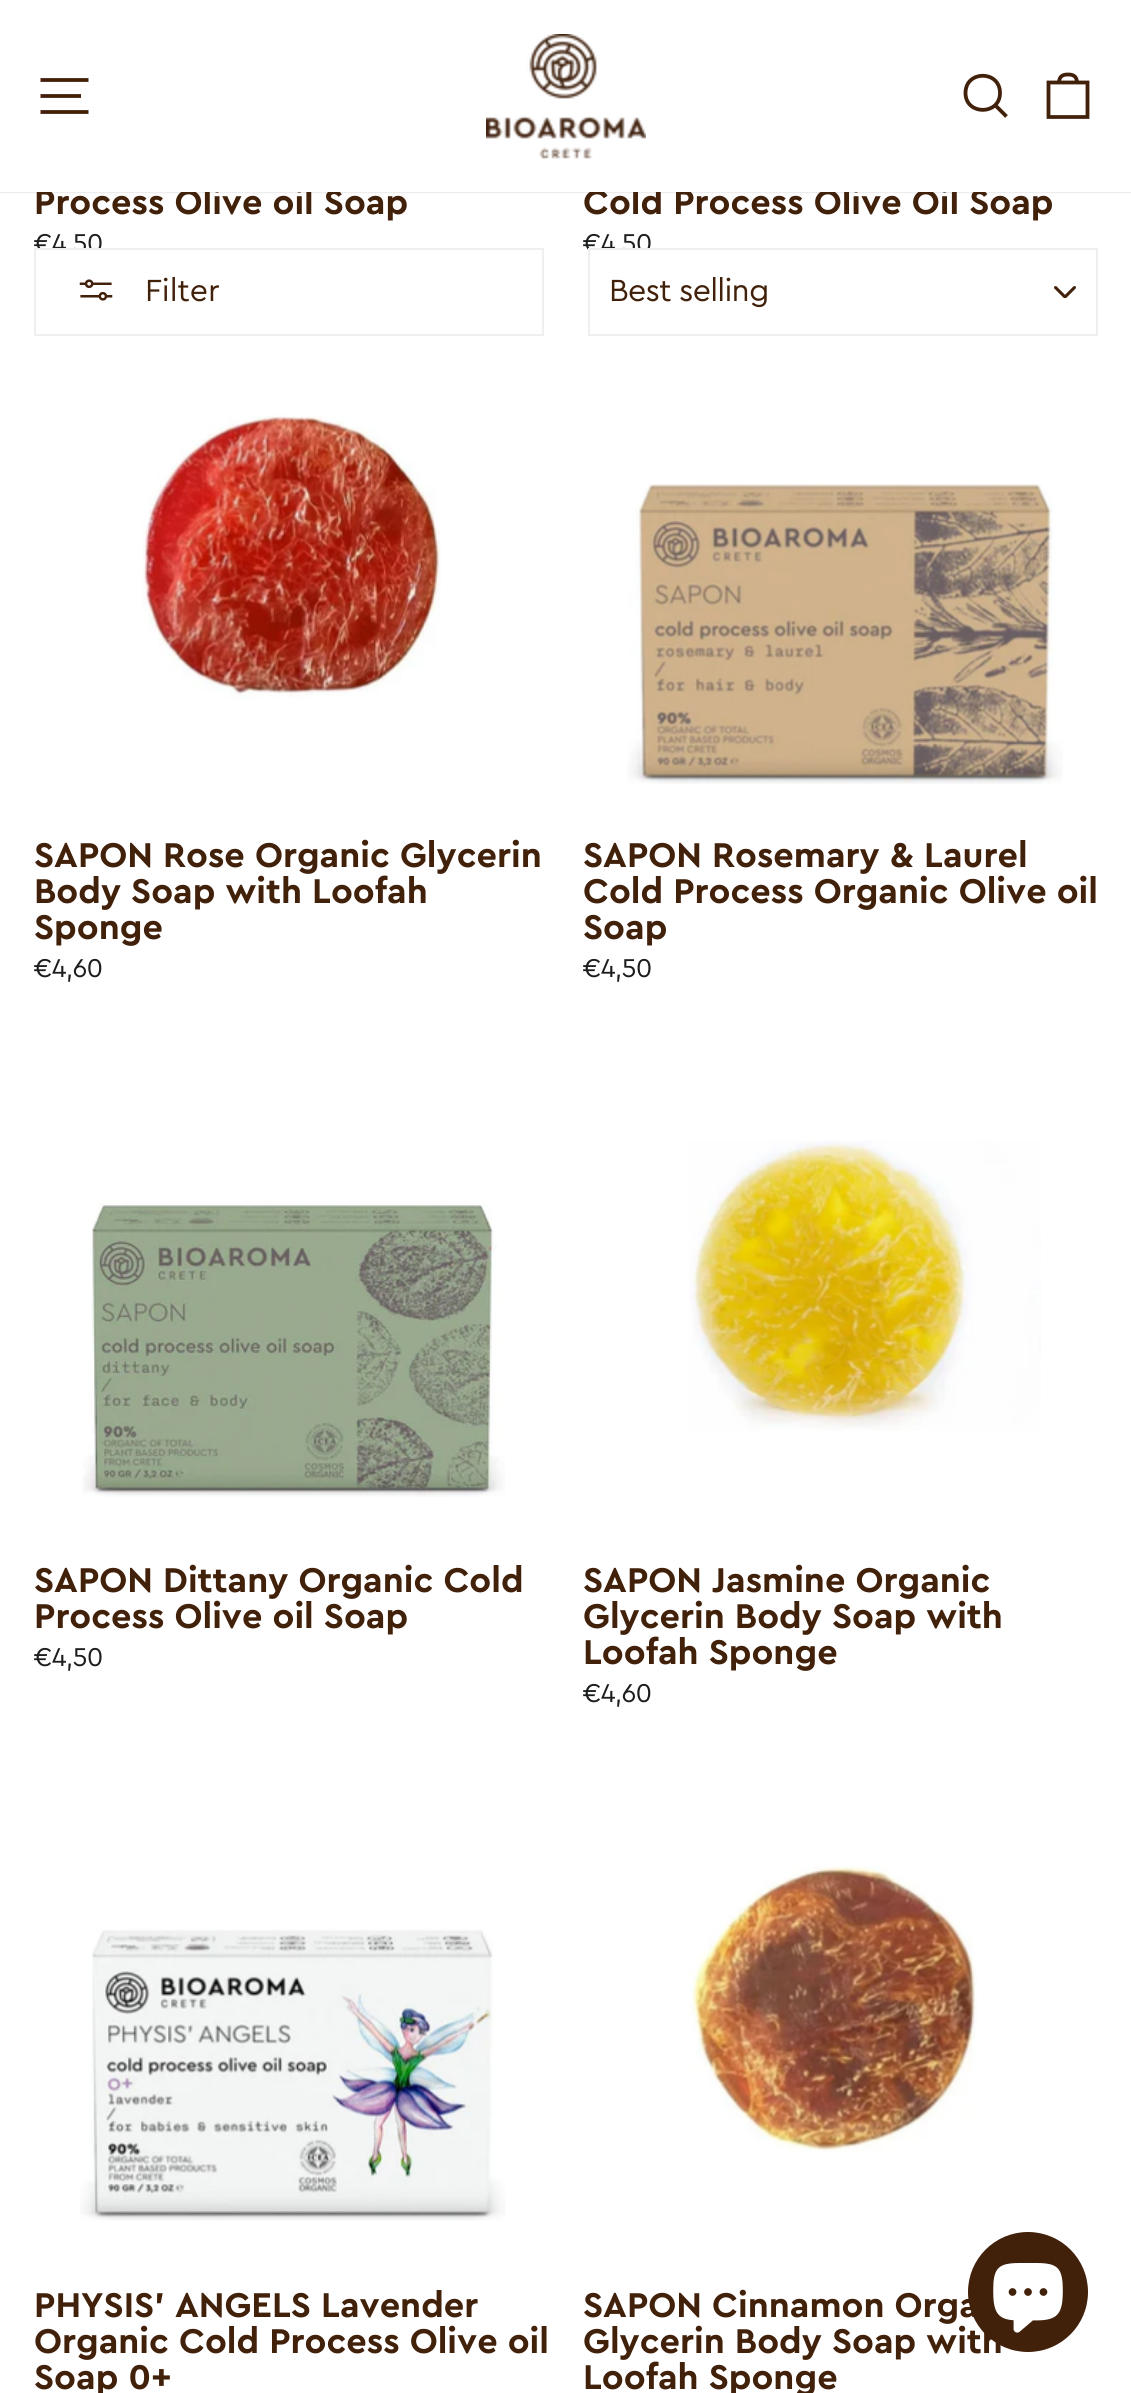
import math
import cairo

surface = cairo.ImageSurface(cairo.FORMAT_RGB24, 1131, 2393)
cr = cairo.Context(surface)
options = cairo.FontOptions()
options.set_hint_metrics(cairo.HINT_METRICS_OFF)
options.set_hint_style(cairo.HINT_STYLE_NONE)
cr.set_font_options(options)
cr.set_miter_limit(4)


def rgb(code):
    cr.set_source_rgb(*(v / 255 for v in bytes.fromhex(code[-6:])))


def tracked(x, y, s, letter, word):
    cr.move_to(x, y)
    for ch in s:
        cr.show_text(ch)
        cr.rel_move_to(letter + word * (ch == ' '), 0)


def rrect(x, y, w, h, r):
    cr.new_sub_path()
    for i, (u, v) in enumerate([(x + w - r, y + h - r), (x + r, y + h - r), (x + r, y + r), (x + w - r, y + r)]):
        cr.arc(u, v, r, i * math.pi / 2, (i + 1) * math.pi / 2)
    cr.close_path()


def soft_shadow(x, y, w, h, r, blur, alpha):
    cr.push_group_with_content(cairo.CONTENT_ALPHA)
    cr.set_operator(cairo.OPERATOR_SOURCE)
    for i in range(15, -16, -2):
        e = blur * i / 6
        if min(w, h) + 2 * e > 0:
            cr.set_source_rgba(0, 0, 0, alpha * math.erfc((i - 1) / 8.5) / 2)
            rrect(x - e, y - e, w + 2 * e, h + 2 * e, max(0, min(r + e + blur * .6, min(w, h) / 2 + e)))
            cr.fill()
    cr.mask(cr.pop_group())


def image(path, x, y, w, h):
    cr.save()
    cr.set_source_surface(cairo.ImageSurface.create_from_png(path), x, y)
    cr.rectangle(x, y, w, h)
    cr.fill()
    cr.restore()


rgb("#ffffff")
cr.paint()
rgb("#000000")
soft_shadow(0, 0, 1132, 192, 0, 1, 0.2)
image("img/2.png", 142, 415, 299, 284)
image("img/3.png", 627, 484, 436, 300)
image("img/4.png", 82, 1200, 423, 297)
image("img/5.png", 689, 1140, 352, 291)
image("img/6.png", 80, 1929, 426, 292)
image("img/7.png", 689, 1866, 288, 286)
image("img/9.png", 1054, 286, 22, 12)
rgb("#42210b")
cr.arc(1028, 2292, 60, 0, 2 * math.pi)
cr.fill()
cr.select_font_face("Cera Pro", cairo.FONT_SLANT_NORMAL, cairo.FONT_WEIGHT_BOLD)
cr.set_font_size(36)
cr.move_to(34, 214)
cr.show_text("Process Olive oil Soap")
cr.select_font_face("Cera Pro")
cr.set_font_size(27)
rgb("#1c1d1d")
tracked(34, 252, "€4,50", -0.75, 0)
cr.select_font_face("Cera Pro", cairo.FONT_SLANT_NORMAL, cairo.FONT_WEIGHT_BOLD)
cr.set_font_size(36)
rgb("#42210b")
cr.move_to(583, 214)
cr.show_text("Cold Process Olive Oil Soap")
rgb("#ffffff")
cr.rectangle(0, 0, 1131, 192)
cr.fill()
image("img/1.png", 486, 34, 160, 125)
cr.new_path()
cr.move_to(1048.5, 82.5)
cr.line_to(1087.5, 82.5)
cr.line_to(1087.5, 117)
cr.line_to(1048.5, 117)
cr.close_path()
cr.move_to(1059, 83)
cr.curve_to(1059, 76, 1063, 74.5, 1068, 74.5)
cr.curve_to(1073, 74.5, 1077, 76, 1077, 83)
rgb("#42210b")
cr.set_line_width(3.8)
cr.stroke()
cr.new_path()
cr.move_to(1000, 93)
cr.curve_to(1000, 115.5, 965.5, 115.5, 965.5, 93)
cr.curve_to(965.5, 70, 1000, 70, 1000, 93)
cr.close_path()
cr.move_to(1006.5, 116.5)
cr.line_to(995.5, 105.5)
cr.stroke()
cr.new_path()
cr.move_to(40.5, 80)
cr.line_to(88.5, 80)
cr.move_to(40.5, 96)
cr.line_to(81, 96)
cr.move_to(40.5, 112)
cr.line_to(88.5, 112)
cr.stroke()
cr.select_font_face("Cera Pro")
cr.set_font_size(27)
rgb("#1c1d1d")
tracked(583, 252, "€4,50", -0.75, 0)
cr.select_font_face("Cera Pro", cairo.FONT_SLANT_NORMAL, cairo.FONT_WEIGHT_BOLD)
cr.set_font_size(36)
rgb("#42210b")
for x, y, s in [
    (34, 867, "SAPON Rose Organic Glycerin"),
    (34, 903, "Body Soap with Loofah"),
    (34, 939, "Sponge"),
]:
    cr.move_to(x, y)
    cr.show_text(s)
cr.select_font_face("Cera Pro")
cr.set_font_size(27)
rgb("#1c1d1d")
tracked(34, 977, "€4,60", -0.75, 0)
cr.select_font_face("Cera Pro", cairo.FONT_SLANT_NORMAL, cairo.FONT_WEIGHT_BOLD)
cr.set_font_size(36)
rgb("#42210b")
for x, y, s in [
    (583, 867, "SAPON Rosemary & Laurel"),
    (583, 903, "Cold Process Organic Olive oil"),
    (583, 939, "Soap"),
]:
    cr.move_to(x, y)
    cr.show_text(s)
cr.select_font_face("Cera Pro")
cr.set_font_size(27)
rgb("#1c1d1d")
tracked(583, 977, "€4,50", -0.75, 0)
cr.select_font_face("Cera Pro", cairo.FONT_SLANT_NORMAL, cairo.FONT_WEIGHT_BOLD)
cr.set_font_size(36)
rgb("#42210b")
cr.move_to(34, 1592)
cr.show_text("SAPON Dittany Organic Cold")
cr.move_to(34, 1628)
cr.show_text("Process Olive oil Soap")
cr.select_font_face("Cera Pro")
cr.set_font_size(27)
rgb("#1c1d1d")
tracked(34, 1666, "€4,50", -0.75, 0)
cr.select_font_face("Cera Pro", cairo.FONT_SLANT_NORMAL, cairo.FONT_WEIGHT_BOLD)
cr.set_font_size(36)
rgb("#42210b")
for x, y, s in [
    (583, 1592, "SAPON Jasmine Organic"),
    (583, 1628, "Glycerin Body Soap with"),
    (583, 1664, "Loofah Sponge"),
]:
    cr.move_to(x, y)
    cr.show_text(s)
cr.select_font_face("Cera Pro")
cr.set_font_size(27)
rgb("#1c1d1d")
tracked(583, 1702, "€4,60", -0.75, 0)
cr.select_font_face("Cera Pro", cairo.FONT_SLANT_NORMAL, cairo.FONT_WEIGHT_BOLD)
cr.set_font_size(36)
rgb("#42210b")
for x, y, s in [
    (34, 2317, "PHYSIS' ANGELS Lavender"),
    (34, 2353, "Organic Cold Process Olive oil"),
    (34, 2389, "Soap 0+"),
    (583, 2317, "SAPON Cinnamon Orga"),
    (583, 2353, "Glycerin Body Soap with"),
    (583, 2389, "Loofah Sponge"),
]:
    cr.move_to(x, y)
    cr.show_text(s)
rgb("#ffffff")
cr.rectangle(39, 250, 62, 7)
cr.fill()
cr.rectangle(35, 249, 508, 86)
rgb("#efefef")
cr.set_line_width(2)
cr.stroke()
image("img/8.png", 79, 279, 34, 22)
cr.select_font_face("Cera Pro")
cr.set_font_size(32)
rgb("#42210b")
cr.move_to(145, 301)
cr.show_text("Filter")
rgb("#ffffff")
cr.rectangle(590, 250, 60, 7)
cr.fill()
cr.rectangle(589, 249, 508, 86)
rgb("#efefef")
cr.stroke()
rgb("#42210b")
tracked(609, 301, "Best selling", -0.75, 0)
image("img/10.png", 993, 2263, 70, 70)
surface.write_to_png("page.png")
